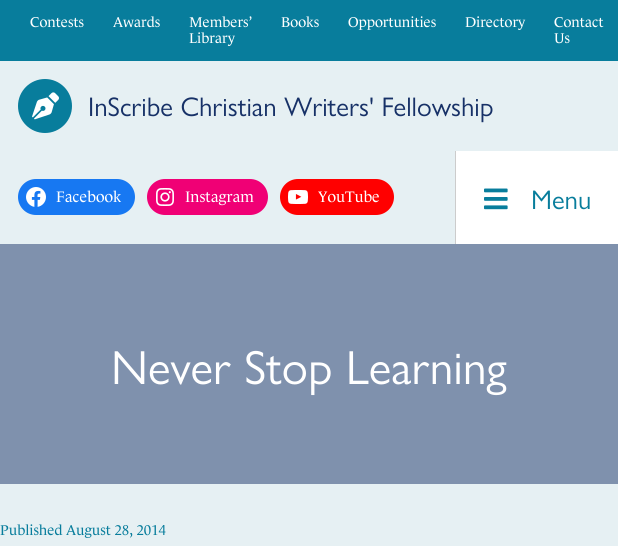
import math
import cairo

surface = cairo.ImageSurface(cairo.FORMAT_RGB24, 618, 546)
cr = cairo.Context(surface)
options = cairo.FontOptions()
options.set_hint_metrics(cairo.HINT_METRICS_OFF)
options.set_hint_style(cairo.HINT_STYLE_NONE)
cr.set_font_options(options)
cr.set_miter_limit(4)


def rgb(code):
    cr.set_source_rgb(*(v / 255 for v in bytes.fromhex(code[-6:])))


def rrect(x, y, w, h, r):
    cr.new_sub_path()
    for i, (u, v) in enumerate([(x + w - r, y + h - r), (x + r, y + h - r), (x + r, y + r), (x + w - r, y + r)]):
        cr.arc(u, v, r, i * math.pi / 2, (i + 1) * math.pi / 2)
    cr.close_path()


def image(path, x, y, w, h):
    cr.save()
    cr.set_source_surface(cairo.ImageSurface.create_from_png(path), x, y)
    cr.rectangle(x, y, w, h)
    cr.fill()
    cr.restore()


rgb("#e6f0f3")
cr.paint()
rgb("#087d9c")
cr.rectangle(0, 0, 618, 61)
cr.fill()
cr.arc(45, 106, 27, 0, 2 * math.pi)
cr.fill()
image("img/1.png", 32, 92, 27, 28)
rgb("#1778f2")
rrect(18, 179, 117, 36, 18)
cr.fill()
image("img/2.png", 26, 187, 20, 20)
rgb("#f00075")
rrect(147, 179, 121, 36, 18)
cr.fill()
image("img/3.png", 156, 188, 18, 18)
rgb("#ff0000")
rrect(280, 179, 114, 36, 18)
cr.fill()
image("img/4.png", 288, 190, 20, 14)
rgb("#ffffff")
cr.rectangle(456, 151, 162, 93)
cr.fill()
rgb("#cccccc")
cr.rectangle(455, 151, 1, 93)
cr.fill()
image("img/5.png", 484, 188, 24, 22)
rgb("#7f91ad")
cr.rectangle(0, 244, 618, 240)
cr.fill()
cr.select_font_face("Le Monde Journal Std")
cr.set_font_size(14.4)
rgb("#ffffff")
for x, y, s in [
    (30, 27, "Contests"),
    (113, 27, "Awards"),
    (189, 27, "Members’"),
    (189, 43, "Library"),
    (281, 27, "Books"),
    (348, 27, "Opportunities"),
    (465, 27, "Directory"),
    (554, 27, "Contact"),
    (554, 43, "Us"),
]:
    cr.move_to(x, y)
    cr.show_text(s)
cr.select_font_face("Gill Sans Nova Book")
cr.set_font_size(27)
rgb("#173167")
cr.move_to(88, 116)
cr.show_text("InScribe Christian Writers' Fellowship")
cr.select_font_face("Le Monde Journal Std")
cr.set_font_size(15.5)
rgb("#ffffff")
for x, y, s in [
    (56, 202, "Facebook"),
    (185, 202, "Instagram"),
    (318, 202, "YouTube"),
]:
    cr.move_to(x, y)
    cr.show_text(s)
cr.select_font_face("Gill Sans Nova Book")
cr.set_font_size(27)
rgb("#087d9c")
cr.move_to(531, 209)
cr.show_text("Menu")
cr.set_font_size(48)
rgb("#ffffff")
cr.move_to(111, 384)
cr.show_text("Never Stop Learning")
cr.select_font_face("Le Monde Journal Std")
cr.set_font_size(14.4)
rgb("#087d9c")
cr.move_to(0, 535)
cr.show_text("Published August 28, 2014")
surface.write_to_png("page.png")
